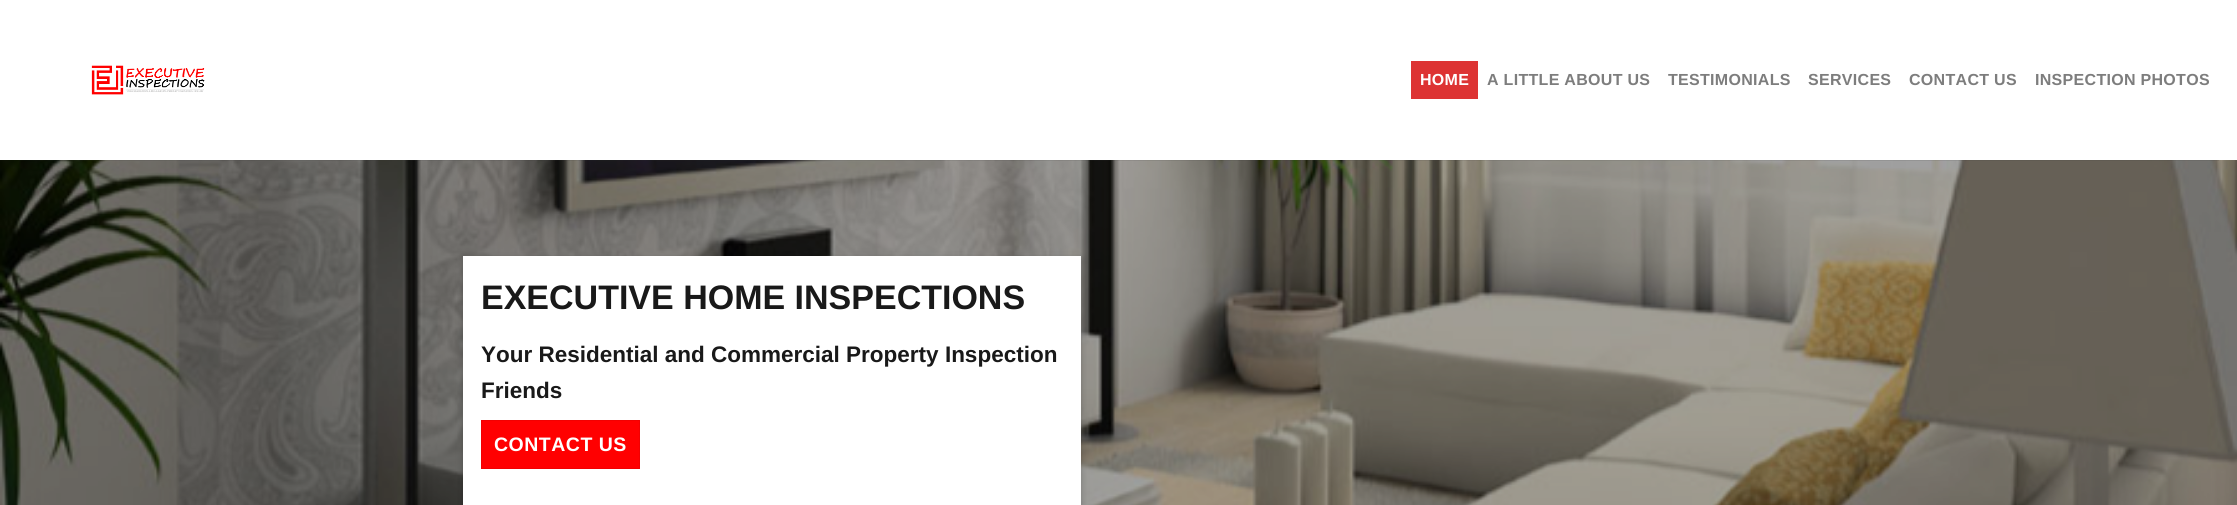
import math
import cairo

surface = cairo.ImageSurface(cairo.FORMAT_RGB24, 2237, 505)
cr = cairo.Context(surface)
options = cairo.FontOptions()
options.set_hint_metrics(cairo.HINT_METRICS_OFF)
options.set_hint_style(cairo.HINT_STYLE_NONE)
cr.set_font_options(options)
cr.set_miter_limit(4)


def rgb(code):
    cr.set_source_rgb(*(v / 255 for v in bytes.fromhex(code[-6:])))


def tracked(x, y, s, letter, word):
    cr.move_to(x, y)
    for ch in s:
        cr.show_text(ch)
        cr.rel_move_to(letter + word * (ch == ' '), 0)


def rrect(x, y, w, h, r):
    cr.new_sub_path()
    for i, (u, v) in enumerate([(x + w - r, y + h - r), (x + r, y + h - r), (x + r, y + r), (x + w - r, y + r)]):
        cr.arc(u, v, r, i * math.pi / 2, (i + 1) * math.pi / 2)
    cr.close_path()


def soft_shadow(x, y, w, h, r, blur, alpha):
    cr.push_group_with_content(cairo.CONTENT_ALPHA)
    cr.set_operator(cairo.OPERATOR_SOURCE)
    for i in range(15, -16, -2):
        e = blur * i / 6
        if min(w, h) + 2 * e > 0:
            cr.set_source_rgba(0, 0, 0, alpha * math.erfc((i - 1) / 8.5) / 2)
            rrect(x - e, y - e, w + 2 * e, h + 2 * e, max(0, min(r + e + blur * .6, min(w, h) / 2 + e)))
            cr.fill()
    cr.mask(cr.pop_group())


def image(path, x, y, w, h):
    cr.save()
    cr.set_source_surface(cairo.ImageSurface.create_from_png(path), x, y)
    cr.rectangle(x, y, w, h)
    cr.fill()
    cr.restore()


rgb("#ffffff")
cr.paint()
image("img/1.png", 91, 65, 114, 30)
rgb("#dd3333")
cr.rectangle(1411, 61, 67, 38)
cr.fill()
image("img/2.png", 0, 160, 2237, 345)
cr.set_source_rgba(0.188, 0.188, 0.188, 0.1)
cr.rectangle(19, 160, 2200, 1)
cr.fill()
rgb("#000000")
soft_shadow(463, 260, 618, 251, 0, 4, 0.23)
rgb("#ffffff")
cr.rectangle(463, 256, 618, 249)
cr.fill()
rgb("#ff0001")
cr.rectangle(481.5, 420.5, 158, 48)
cr.fill_preserve()
rgb("#f20001")
cr.set_line_width(1)
cr.stroke()
cr.select_font_face("Liberation Sans", cairo.FONT_SLANT_NORMAL, cairo.FONT_WEIGHT_BOLD)
cr.set_font_size(16)
rgb("#ffffff")
tracked(1420, 85, "HOME", 0.3, 0)
rgb("#7d7d7d")
for x, y, s in [
    (1487, 85, "A LITTLE ABOUT US"),
    (1668, 85, "TESTIMONIALS"),
    (1808, 85, "SERVICES"),
    (1909, 85, "CONTACT US"),
    (2035, 85, "INSPECTION PHOTOS"),
]:
    tracked(x, y, s, 0.3, 0)
cr.set_font_size(34)
rgb("#191919")
cr.move_to(481, 309)
cr.show_text("EXECUTIVE HOME INSPECTIONS")
cr.set_font_size(22.5)
cr.move_to(481, 362)
cr.show_text("Your Residential and Commercial Property Inspection")
cr.move_to(481, 398)
cr.show_text("Friends")
cr.set_font_size(19.5)
rgb("#ffffff")
tracked(494, 451, "CONTACT US", 0.5, 0)
surface.write_to_png("page.png")
